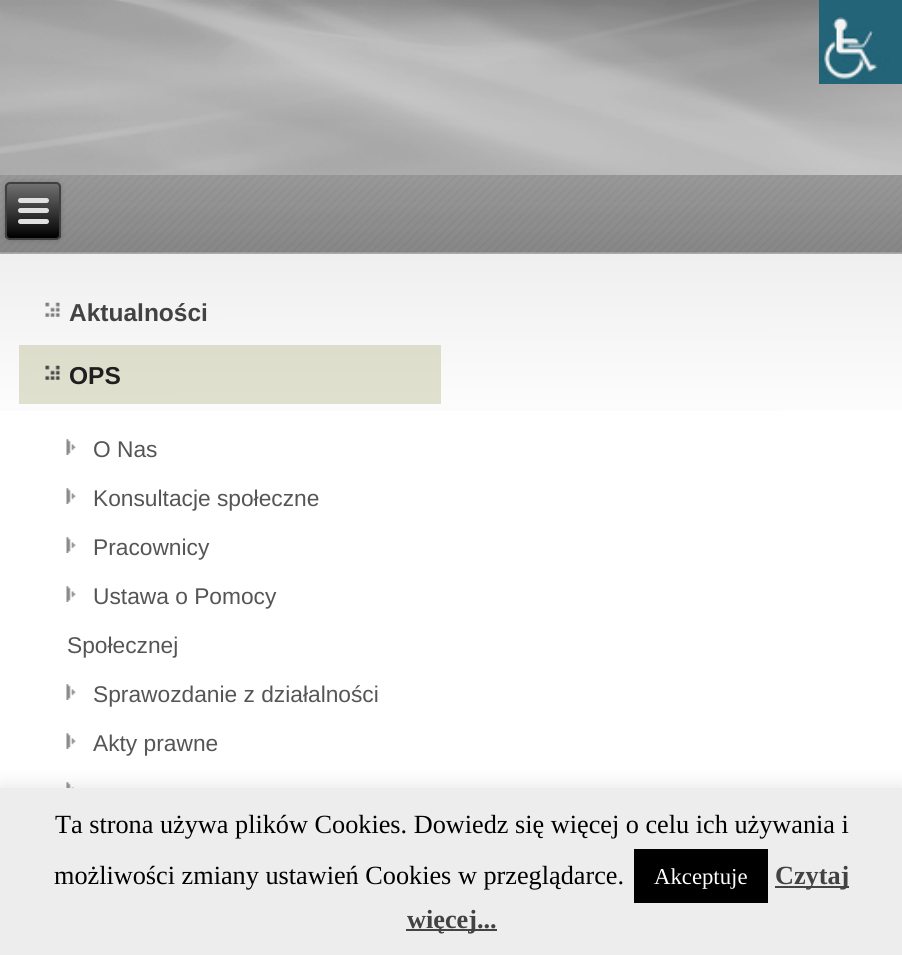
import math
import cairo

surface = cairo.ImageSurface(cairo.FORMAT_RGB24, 902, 955)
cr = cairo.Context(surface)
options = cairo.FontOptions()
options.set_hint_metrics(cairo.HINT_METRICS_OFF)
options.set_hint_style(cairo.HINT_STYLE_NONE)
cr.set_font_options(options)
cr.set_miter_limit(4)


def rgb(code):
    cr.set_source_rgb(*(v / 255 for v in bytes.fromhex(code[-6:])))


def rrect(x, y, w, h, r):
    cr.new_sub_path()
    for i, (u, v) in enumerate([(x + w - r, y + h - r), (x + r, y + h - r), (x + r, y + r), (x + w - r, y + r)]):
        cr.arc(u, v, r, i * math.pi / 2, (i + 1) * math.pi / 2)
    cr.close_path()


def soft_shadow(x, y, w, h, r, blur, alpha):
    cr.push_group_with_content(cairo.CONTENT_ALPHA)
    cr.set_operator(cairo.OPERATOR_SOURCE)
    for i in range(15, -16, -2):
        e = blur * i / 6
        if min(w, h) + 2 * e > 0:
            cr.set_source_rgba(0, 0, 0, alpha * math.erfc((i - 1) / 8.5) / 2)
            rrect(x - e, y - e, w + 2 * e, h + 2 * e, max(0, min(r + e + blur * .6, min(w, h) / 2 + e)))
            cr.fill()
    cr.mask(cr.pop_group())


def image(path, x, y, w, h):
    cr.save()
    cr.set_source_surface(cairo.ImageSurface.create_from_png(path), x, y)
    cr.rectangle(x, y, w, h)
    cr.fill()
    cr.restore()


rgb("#ffffff")
cr.paint()
gradient = cairo.LinearGradient(451, 0, 452, 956)
gradient.add_color_stop_rgba(0, 0.851, 0.851, 0.851, 1)
gradient.add_color_stop_rgba(0.46, 1, 1, 1, 1)
cr.set_source(gradient)
cr.rectangle(0, 0, 902, 411)
cr.fill()
image("img/2.png", 0, 0, 902, 175)
image("img/1.png", 819, 0, 83, 84)
gradient = cairo.LinearGradient(451, 0, 452, 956)
gradient.add_color_stop_rgba(0, 0.796, 0.796, 0.729, 1)
gradient.add_color_stop_rgba(0.46, 0.886, 0.886, 0.82, 1)
cr.set_source(gradient)
cr.rectangle(19, 345, 422, 59)
cr.fill()
image("img/3.png", 0, 175, 902, 79)
cr.set_source_rgba(0.749, 0.749, 0.749, 0.4)
cr.rectangle(0, 252, 902, 2)
cr.fill()
rgb("#000000")
soft_shadow(5, 182, 56, 58, 5, 2.5, 0.2)
cr.save()
rrect(5, 182, 56, 58, 5)
cr.clip()
gradient = cairo.LinearGradient(33, 184, 33, 238)
gradient.add_color_stop_rgba(0, 0.439, 0.439, 0.439, 1)
gradient.add_color_stop_rgba(1, 0, 0, 0, 1)
cr.set_source(gradient)
cr.rectangle(5, 184, 56, 54)
cr.fill()
cr.restore()
rrect(6, 183, 54, 56, 4)
rgb("#404040")
cr.stroke()
rgb("#e0e0e0")
rrect(18, 198, 31, 5, 2.5)
cr.fill()
rrect(18, 208, 31, 5, 2.5)
cr.fill()
rrect(18, 219, 31, 5, 2.5)
cr.fill()
image("img/4.png", 45, 302, 15, 15)
image("img/5.png", 45, 365, 15, 15)
image("img/6.png", 66, 439, 10, 16)
image("img/6.png", 66, 488, 10, 16)
image("img/6.png", 66, 537, 10, 16)
image("img/6.png", 66, 586, 10, 16)
image("img/6.png", 66, 684, 10, 16)
image("img/6.png", 66, 733, 10, 16)
image("img/7.png", 66, 782, 8, 6)
rgb("#acabab")
soft_shadow(0, 786, 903, 168, 0, 9, 0.3)
for x, y, w, h, color in [
    (0, 788, 902, 167, "#ededed"),
    (634, 849, 134, 54, "#000000"),
    (775, 886, 74, 2, "#444444"),
    (406, 929, 91, 2, "#444444"),
]:
    rgb(color)
    cr.rectangle(x, y, w, h)
    cr.fill()
cr.select_font_face("Liberation Sans", cairo.FONT_SLANT_NORMAL, cairo.FONT_WEIGHT_BOLD)
cr.set_font_size(24.5)
rgb("#424242")
cr.move_to(69, 321)
cr.show_text("Aktualności")
rgb("#1f1f1f")
cr.move_to(69, 384)
cr.show_text("OPS")
cr.select_font_face("Liberation Sans")
cr.set_font_size(22.75)
rgb("#555555")
for x, y, s in [
    (93, 457, "O Nas"),
    (93, 506, "Konsultacje społeczne"),
    (93, 555, "Pracownicy"),
    (93, 604, "Ustawa o Pomocy"),
    (67, 653, "Społecznej"),
    (93, 702, "Sprawozdanie z działalności"),
    (93, 751, "Akty prawne"),
]:
    cr.move_to(x, y)
    cr.show_text(s)
cr.select_font_face("Liberation Serif")
cr.set_font_size(26.25)
rgb("#000000")
cr.move_to(55, 833)
cr.show_text("Ta strona używa plików Cookies. Dowiedz się więcej o celu ich używania i")
cr.move_to(54, 884)
cr.show_text("możliwości zmiany ustawień Cookies w przeglądarce.")
cr.set_font_size(22.75)
rgb("#ffffff")
cr.move_to(654, 884)
cr.show_text("Akceptuje")
cr.select_font_face("Liberation Serif", cairo.FONT_SLANT_NORMAL, cairo.FONT_WEIGHT_BOLD)
cr.set_font_size(26.25)
rgb("#424242")
cr.move_to(775, 884)
cr.show_text("Czytaj")
cr.move_to(407, 928)
cr.show_text("więcej...")
surface.write_to_png("page.png")
